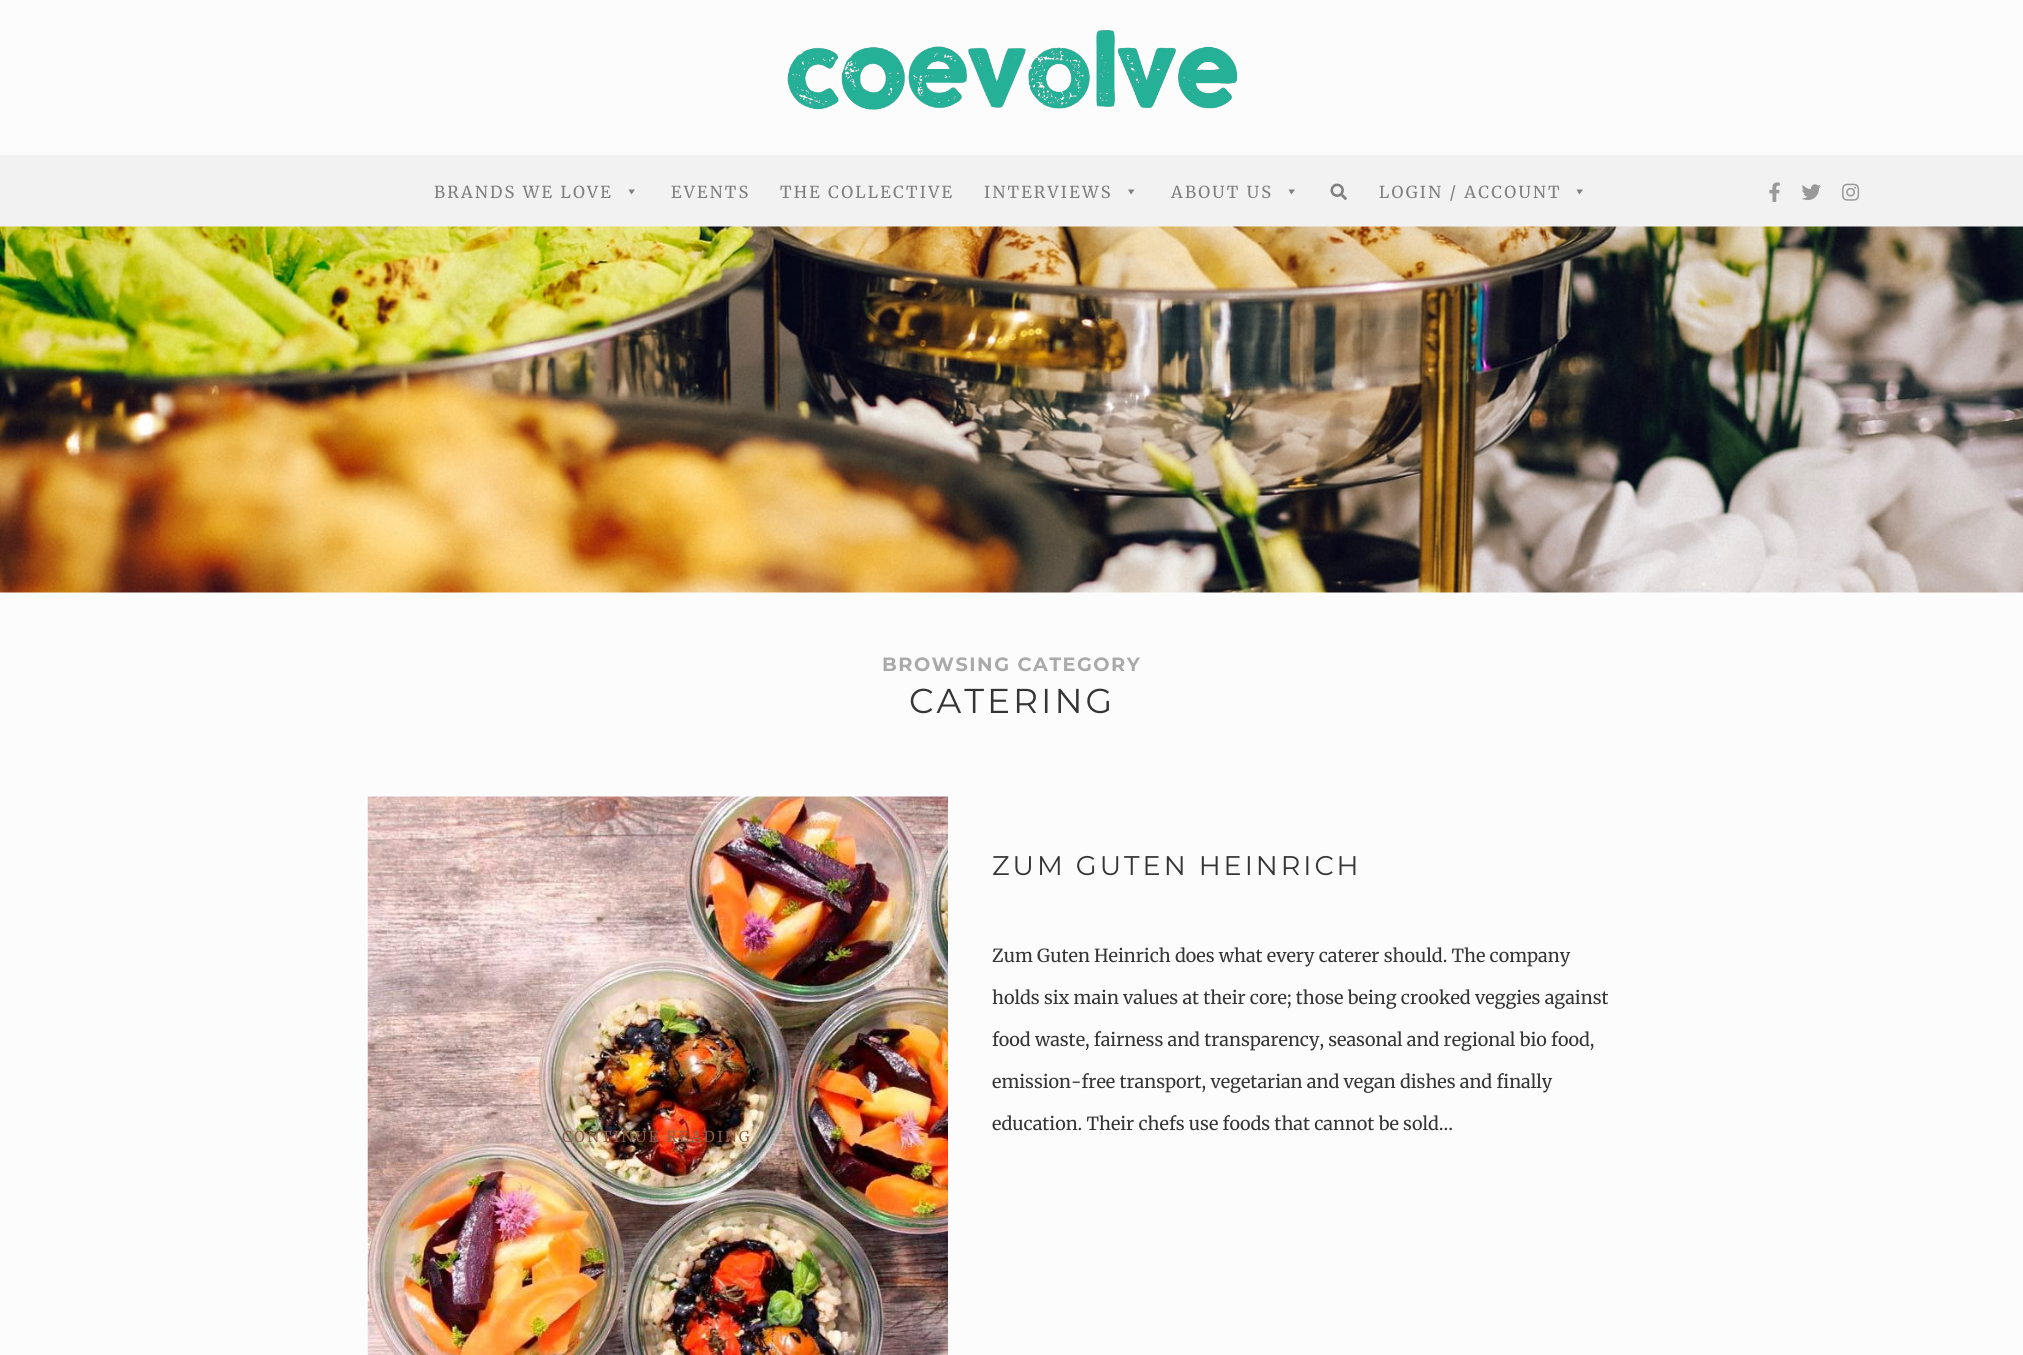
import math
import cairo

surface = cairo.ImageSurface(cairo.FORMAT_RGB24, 2023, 1355)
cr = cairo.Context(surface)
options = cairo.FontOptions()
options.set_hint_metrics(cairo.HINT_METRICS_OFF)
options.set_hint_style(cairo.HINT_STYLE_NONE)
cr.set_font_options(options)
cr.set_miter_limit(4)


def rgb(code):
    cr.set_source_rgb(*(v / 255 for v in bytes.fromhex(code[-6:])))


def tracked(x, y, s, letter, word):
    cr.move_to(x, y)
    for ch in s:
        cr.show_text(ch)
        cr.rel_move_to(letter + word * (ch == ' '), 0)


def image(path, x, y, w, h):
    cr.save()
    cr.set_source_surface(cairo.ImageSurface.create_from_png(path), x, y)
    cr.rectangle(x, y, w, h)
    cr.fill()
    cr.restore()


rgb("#fcfcfc")
cr.paint()
image("img/1.png", 787, 30, 451, 80)
rgb("#f2f2f2")
cr.rectangle(0, 155, 2023, 72)
cr.fill()
rgb("#7f7f7f")
cr.new_path()
cr.move_to(635, 189.5)
cr.line_to(631.5, 194.5)
cr.line_to(628.5, 189.5)
cr.close_path()
cr.fill()
cr.new_path()
cr.move_to(1134.5, 189.5)
cr.line_to(1131, 194.5)
cr.line_to(1128, 189.5)
cr.close_path()
cr.fill()
cr.new_path()
cr.move_to(1295, 189.5)
cr.line_to(1291.5, 194.5)
cr.line_to(1288.5, 189.5)
cr.close_path()
cr.fill()
image("img/2.png", 1330, 183, 17, 17)
cr.new_path()
cr.move_to(1583, 189.5)
cr.line_to(1579.5, 194.5)
cr.line_to(1576.5, 189.5)
cr.close_path()
cr.fill()
image("img/3.png", 1769, 182, 11, 20)
image("img/4.png", 1801, 184, 20, 17)
image("img/5.png", 1842, 183, 18, 18)
image("img/6.png", 0, 226, 2023, 367)
image("img/7.png", 367, 796, 581, 559)
cr.select_font_face("Merriweather")
cr.set_font_size(16.5)
for x, y, s in [
    (434, 198, "BRANDS WE LOVE"),
    (671, 198, "EVENTS"),
    (780, 198, "THE COLLECTIVE"),
    (984, 198, "INTERVIEWS"),
    (1171, 198, "ABOUT US"),
    (1379, 198, "LOGIN / ACCOUNT"),
]:
    tracked(x, y, s, 2.25, 0)
cr.select_font_face("Montserrat", cairo.FONT_SLANT_NORMAL, cairo.FONT_WEIGHT_BOLD)
cr.set_font_size(19.25)
rgb("#aaaaaa")
tracked(882, 671, "BROWSING CATEGORY", 1.5, 0)
cr.select_font_face("Montserrat")
cr.set_font_size(34.5)
rgb("#353535")
tracked(909, 713, "CATERING", 3, 0)
cr.set_font_size(27)
tracked(992, 875, "ZUM GUTEN HEINRICH", 3, 0)
cr.select_font_face("Merriweather")
cr.set_font_size(18)
for x, y, s in [
    (992, 962, "Zum Guten Heinrich does what every caterer should. The company"),
    (992, 1004, "holds six main values at their core; those being crooked veggies against"),
    (992, 1046, "food waste, fairness and transparency, seasonal and regional bio food,"),
    (992, 1088, "emission-free transport, vegetarian and vegan dishes and finally"),
    (992, 1130, "education. Their chefs use foods that cannot be sold…"),
]:
    cr.move_to(x, y)
    cr.show_text(s)
cr.set_font_size(15)
rgb("#905d47")
tracked(562, 1142, "CONTINUE READING", 2.25, 0)
surface.write_to_png("page.png")
